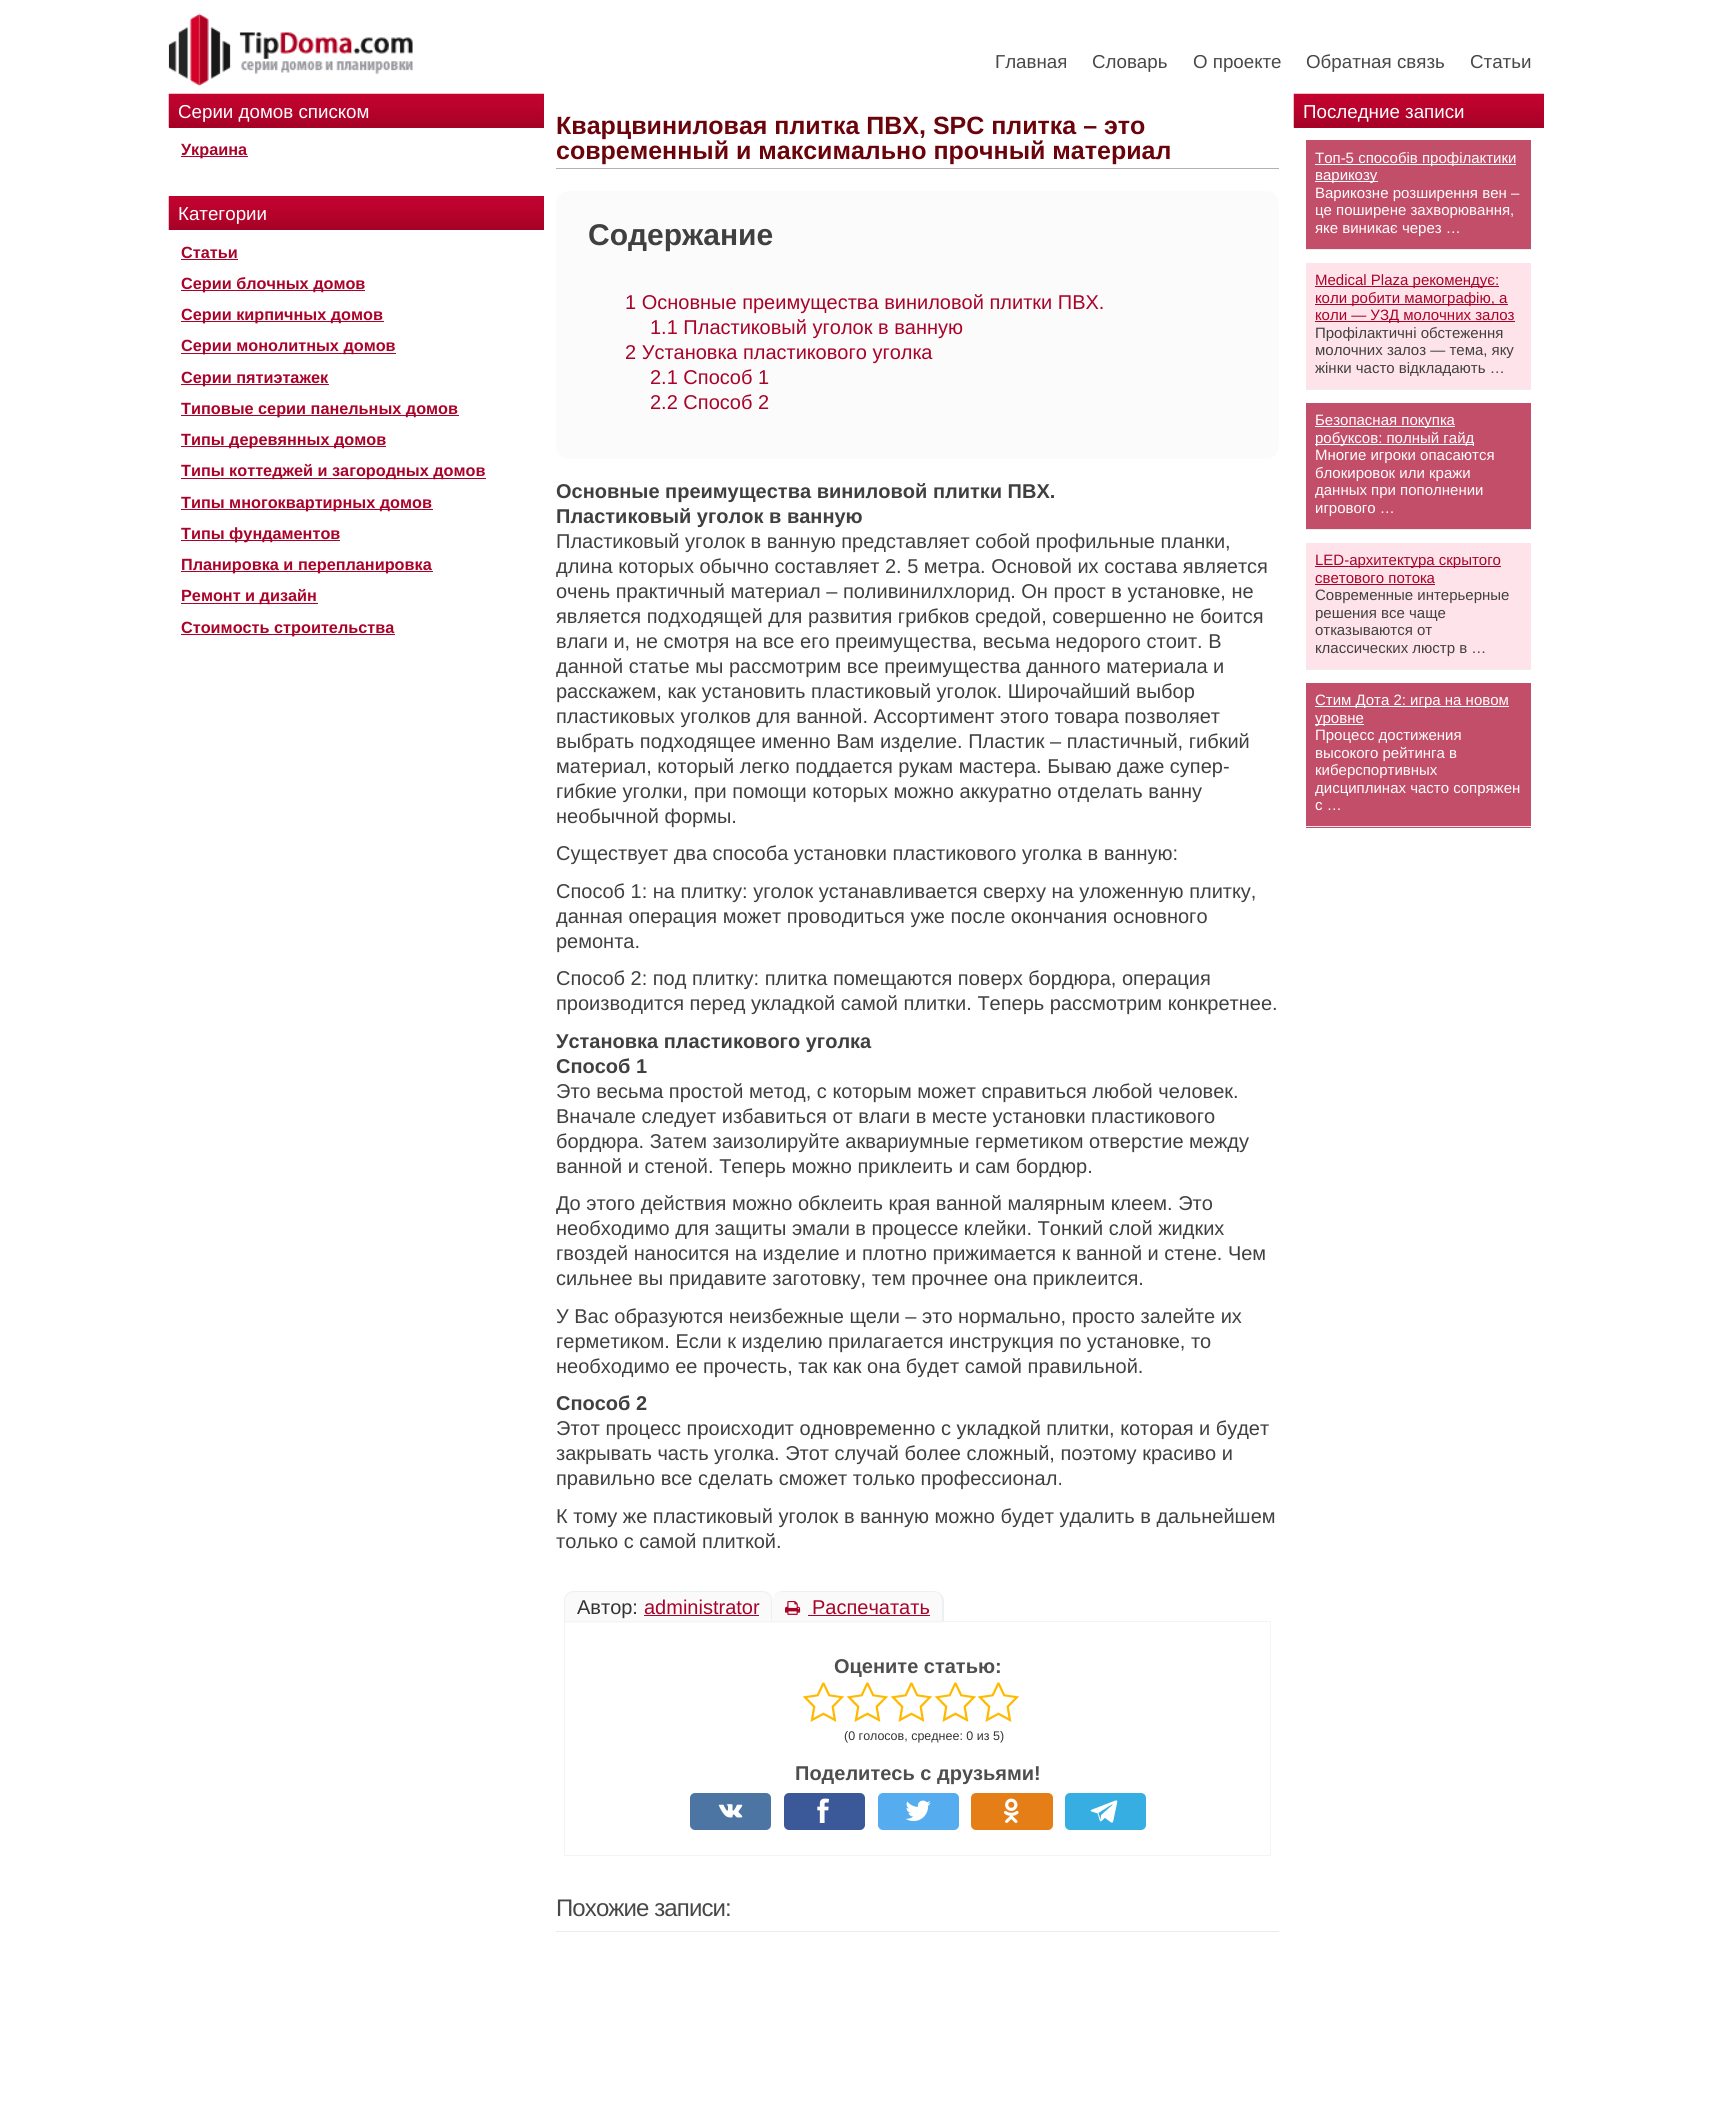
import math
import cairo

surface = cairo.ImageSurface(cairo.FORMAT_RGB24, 1712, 2119)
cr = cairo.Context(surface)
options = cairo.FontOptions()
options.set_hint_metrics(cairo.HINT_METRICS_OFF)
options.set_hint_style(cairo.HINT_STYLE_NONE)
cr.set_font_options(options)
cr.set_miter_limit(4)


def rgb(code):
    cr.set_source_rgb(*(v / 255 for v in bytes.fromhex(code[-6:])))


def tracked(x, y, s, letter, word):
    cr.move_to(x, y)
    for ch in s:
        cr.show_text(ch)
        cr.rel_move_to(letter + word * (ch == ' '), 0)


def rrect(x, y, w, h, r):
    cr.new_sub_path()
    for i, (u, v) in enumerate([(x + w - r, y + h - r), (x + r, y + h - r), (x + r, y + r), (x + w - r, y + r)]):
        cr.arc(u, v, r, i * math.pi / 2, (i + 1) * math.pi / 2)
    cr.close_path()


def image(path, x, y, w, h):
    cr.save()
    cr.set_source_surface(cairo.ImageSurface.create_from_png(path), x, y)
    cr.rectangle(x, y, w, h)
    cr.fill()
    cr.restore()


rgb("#ffffff")
cr.paint()
image("img/1.png", 168, 13, 245, 74)
rgb("#a90329")
cr.rectangle(169, 94, 375, 34)
cr.fill()
image("img/2.png", 168, 93, 376, 35)
cr.rectangle(181, 156, 67, 1)
cr.fill()
cr.rectangle(169, 196, 375, 34)
cr.fill()
image("img/3.png", 168, 196, 376, 34)
for x, y, w, h, color in [
    (181, 259, 57, 1, "#a90329"),
    (181, 290, 184, 1, "#a90329"),
    (181, 321, 203, 1, "#a90329"),
    (181, 353, 215, 1, "#a90329"),
    (181, 384, 148, 1, "#a90329"),
    (181, 415, 278, 1, "#a90329"),
    (181, 446, 205, 1, "#a90329"),
    (181, 478, 305, 1, "#a90329"),
    (181, 509, 252, 1, "#a90329"),
    (181, 540, 159, 1, "#a90329"),
    (181, 571, 252, 1, "#a90329"),
    (181, 603, 137, 1, "#a90329"),
    (181, 634, 214, 1, "#a90329"),
    (556, 168, 723, 1, "#b1b1b1"),
]:
    rgb(color)
    cr.rectangle(x, y, w, h)
    cr.fill()
rgb("#fbfbfb")
rrect(556, 191, 723, 268, 13)
cr.fill()
rgb("#fafafa")
cr.new_path()
cr.move_to(574, 1591)
cr.line_to(763, 1591)
cr.curve_to(768.5, 1591, 773, 1595.5, 773, 1601)
cr.line_to(773, 1623)
cr.line_to(564, 1623)
cr.line_to(564, 1601)
cr.curve_to(564, 1595.5, 568.5, 1591, 574, 1591)
cr.close_path()
cr.fill()
rgb("#edf0f3")
cr.set_fill_rule(cairo.FILL_RULE_EVEN_ODD)
cr.new_path()
cr.move_to(574, 1591)
cr.line_to(762, 1591)
cr.curve_to(768, 1591, 772, 1596, 772, 1601)
cr.line_to(772, 1622)
cr.line_to(564, 1622)
cr.line_to(564, 1601)
cr.curve_to(564, 1596, 568, 1591, 574, 1591)
cr.close_path()
cr.move_to(574, 1592)
cr.line_to(762, 1592)
cr.curve_to(767, 1592, 771, 1596, 771, 1601)
cr.line_to(771, 1622)
cr.line_to(565, 1622)
cr.line_to(565, 1601)
cr.curve_to(565, 1596, 569, 1592, 574, 1592)
cr.close_path()
cr.fill()
rgb("#a90329")
cr.rectangle(644, 1615, 115, 1)
cr.fill()
rgb("#fafafa")
cr.new_path()
cr.move_to(783, 1591)
cr.line_to(934, 1591)
cr.curve_to(939.5, 1591, 944, 1595.5, 944, 1601)
cr.line_to(944, 1623)
cr.line_to(773, 1623)
cr.line_to(773, 1601)
cr.curve_to(773, 1595.5, 777.5, 1591, 783, 1591)
cr.close_path()
cr.fill()
cr.set_source_rgba(0.345, 0.494, 0.624, 0.08)
cr.new_path()
cr.move_to(782, 1591)
cr.line_to(934, 1591)
cr.curve_to(939, 1591, 944, 1596, 944, 1601)
cr.line_to(944, 1622)
cr.line_to(772, 1622)
cr.line_to(772, 1601)
cr.curve_to(772, 1596, 777, 1591, 782, 1591)
cr.close_path()
cr.move_to(782, 1592)
cr.line_to(934, 1592)
cr.curve_to(939, 1592, 942, 1596, 942, 1601)
cr.line_to(942, 1622)
cr.line_to(772, 1622)
cr.line_to(772, 1601)
cr.curve_to(772, 1596, 777, 1592, 782, 1592)
cr.close_path()
cr.fill()
image("img/4.png", 785, 1601, 16, 14)
rgb("#a90329")
cr.rectangle(808, 1615, 122, 1)
cr.fill()
cr.rectangle(564.5, 1621.5, 706, 234)
rgb("#f2f5f8")
cr.set_line_width(1)
cr.stroke()
image("img/5.png", 803, 1682, 217, 40)
rgb("#4d75a3")
rrect(690, 1793, 81, 37, 5)
cr.fill()
image("img/6.png", 718, 1804, 25, 14)
rgb("#3b5998")
rrect(784, 1793, 81, 37, 5)
cr.fill()
image("img/7.png", 817, 1798, 13, 25)
rgb("#55acee")
rrect(878, 1793, 81, 37, 5)
cr.fill()
image("img/8.png", 905, 1800, 26, 21)
rgb("#e67e17")
rrect(971, 1793, 82, 37, 5)
cr.fill()
image("img/9.png", 1003, 1798, 16, 25)
rgb("#37aee2")
rrect(1065, 1793, 81, 37, 5)
cr.fill()
image("img/10.png", 1090, 1800, 28, 23)
rgb("#ebebeb")
cr.rectangle(556, 1931, 723, 1)
cr.fill()
rgb("#a90329")
cr.rectangle(1294, 94, 250, 34)
cr.fill()
image("img/11.png", 1293, 93, 251, 35)
for x, y, w, h, color in [
    (1306, 140, 225, 109, "#c34e69"),
    (1306, 249, 225, 1, "#eeeeee"),
    (1315, 164, 201, 1, "#ffffff"),
    (1315, 181, 63, 1, "#ffffff"),
    (1306, 263, 225, 126, "#ffe3ea"),
    (1306, 389, 225, 1, "#eeeeee"),
    (1315, 286, 184, 1, "#a90329"),
    (1315, 304, 193, 1, "#a90329"),
    (1315, 321, 200, 1, "#a90329"),
    (1306, 403, 225, 126, "#c34e69"),
    (1306, 529, 225, 1, "#eeeeee"),
    (1315, 426, 140, 1, "#ffffff"),
    (1315, 444, 159, 1, "#ffffff"),
    (1306, 543, 225, 126, "#ffe3ea"),
    (1306, 669, 225, 1, "#eeeeee"),
    (1315, 566, 186, 1, "#a90329"),
    (1315, 584, 120, 1, "#a90329"),
    (1306, 683, 225, 145, "#c34e69"),
    (1306, 826, 225, 1, "#eeeeee"),
    (1315, 706, 194, 1, "#ffffff"),
    (1315, 724, 49, 1, "#ffffff"),
]:
    rgb(color)
    cr.rectangle(x, y, w, h)
    cr.fill()
cr.select_font_face("Liberation Sans")
cr.set_font_size(18.75)
rgb("#484848")
for x, y, s in [
    (995, 68, "Главная"),
    (1092, 68, "Словарь"),
    (1193, 68, "О проекте"),
    (1306, 68, "Обратная связь"),
    (1470, 68, "Статьи"),
]:
    cr.move_to(x, y)
    cr.show_text(s)
rgb("#ffffff")
cr.move_to(178, 118)
cr.show_text("Серии домов списком")
cr.select_font_face("Liberation Sans", cairo.FONT_SLANT_NORMAL, cairo.FONT_WEIGHT_BOLD)
cr.set_font_size(16.25)
rgb("#a90329")
cr.move_to(181, 155)
cr.show_text("Украина")
cr.select_font_face("Liberation Sans")
cr.set_font_size(18.75)
rgb("#ffffff")
cr.move_to(178, 220)
cr.show_text("Категории")
cr.select_font_face("Liberation Sans", cairo.FONT_SLANT_NORMAL, cairo.FONT_WEIGHT_BOLD)
cr.set_font_size(16.25)
rgb("#a90329")
for x, y, s in [
    (181, 258, "Статьи"),
    (181, 289, "Серии блочных домов"),
    (181, 320, "Серии кирпичных домов"),
    (181, 351, "Серии монолитных домов"),
    (181, 383, "Серии пятиэтажек"),
    (181, 414, "Типовые серии панельных домов"),
    (181, 445, "Типы деревянных домов"),
    (181, 476, "Типы коттеджей и загородных домов"),
    (181, 508, "Типы многоквартирных домов"),
    (181, 539, "Типы фундаментов"),
    (181, 570, "Планировка и перепланировка"),
    (181, 601, "Ремонт и дизайн"),
    (181, 633, "Стоимость строительства"),
]:
    cr.move_to(x, y)
    cr.show_text(s)
cr.set_font_size(25)
rgb("#6b030b")
cr.move_to(556, 134)
cr.show_text("Кварцвиниловая плитка ПВХ, SPC плитка – это")
cr.move_to(556, 159)
cr.show_text("современный и максимально прочный материал")
cr.set_font_size(30)
rgb("#404040")
cr.move_to(588, 245)
cr.show_text("Содержание")
cr.select_font_face("Liberation Sans")
cr.set_font_size(20)
rgb("#a90329")
for x, y, s in [
    (625, 309, "1 Основные преимущества виниловой плитки ПВХ."),
    (650, 334, "1.1 Пластиковый уголок в ванную"),
    (625, 359, "2 Установка пластикового уголка"),
    (650, 384, "2.1 Способ 1"),
    (650, 409, "2.2 Способ 2"),
]:
    cr.move_to(x, y)
    cr.show_text(s)
cr.select_font_face("Liberation Sans", cairo.FONT_SLANT_NORMAL, cairo.FONT_WEIGHT_BOLD)
rgb("#404040")
cr.move_to(556, 498)
cr.show_text("Основные преимущества виниловой плитки ПВХ.")
cr.move_to(556, 523)
cr.show_text("Пластиковый уголок в ванную")
cr.select_font_face("Liberation Sans")
for x, y, s in [
    (556, 548, "Пластиковый уголок в ванную представляет собой профильные планки,"),
    (556, 573, "длина которых обычно составляет 2. 5 метра. Основой их состава является"),
    (556, 598, "очень практичный материал – поливинилхлорид. Он прост в установке, не"),
    (556, 623, "является подходящей для развития грибков средой, совершенно не боится"),
    (556, 648, "влаги и, не смотря на все его преимущества, весьма недорого стоит. В"),
    (556, 673, "данной статье мы рассмотрим все преимущества данного материала и"),
    (556, 698, "расскажем, как установить пластиковый уголок. Широчайший выбор"),
    (556, 723, "пластиковых уголков для ванной. Ассортимент этого товара позволяет"),
    (556, 748, "выбрать подходящее именно Вам изделие. Пластик – пластичный, гибкий"),
    (556, 773, "материал, который легко поддается рукам мастера. Бываю даже супер-"),
    (556, 798, "гибкие уголки, при помощи которых можно аккуратно отделать ванну"),
    (556, 823, "необычной формы."),
    (556, 860, "Существует два способа установки пластикового уголка в ванную:"),
    (556, 898, "Способ 1: на плитку: уголок устанавливается сверху на уложенную плитку,"),
    (556, 923, "данная операция может проводиться уже после окончания основного"),
    (556, 948, "ремонта."),
    (556, 985, "Способ 2: под плитку: плитка помещаются поверх бордюра, операция"),
    (556, 1010, "производится перед укладкой самой плитки. Теперь рассмотрим конкретнее."),
]:
    cr.move_to(x, y)
    cr.show_text(s)
cr.select_font_face("Liberation Sans", cairo.FONT_SLANT_NORMAL, cairo.FONT_WEIGHT_BOLD)
cr.move_to(556, 1048)
cr.show_text("Установка пластикового уголка")
cr.move_to(556, 1073)
cr.show_text("Способ 1")
cr.select_font_face("Liberation Sans")
for x, y, s in [
    (556, 1098, "Это весьма простой метод, с которым может справиться любой человек."),
    (556, 1123, "Вначале следует избавиться от влаги в месте установки пластикового"),
    (556, 1148, "бордюра. Затем заизолируйте аквариумные герметиком отверстие между"),
    (556, 1173, "ванной и стеной. Теперь можно приклеить и сам бордюр."),
    (556, 1210, "До этого действия можно обклеить края ванной малярным клеем. Это"),
    (556, 1235, "необходимо для защиты эмали в процессе клейки. Тонкий слой жидких"),
    (556, 1260, "гвоздей наносится на изделие и плотно прижимается к ванной и стене. Чем"),
    (556, 1285, "сильнее вы придавите заготовку, тем прочнее она приклеится."),
    (556, 1323, "У Вас образуются неизбежные щели – это нормально, просто залейте их"),
    (556, 1348, "герметиком. Если к изделию прилагается инструкция по установке, то"),
    (556, 1373, "необходимо ее прочесть, так как она будет самой правильной."),
]:
    cr.move_to(x, y)
    cr.show_text(s)
cr.select_font_face("Liberation Sans", cairo.FONT_SLANT_NORMAL, cairo.FONT_WEIGHT_BOLD)
cr.move_to(556, 1410)
cr.show_text("Способ 2")
cr.select_font_face("Liberation Sans")
for x, y, s in [
    (556, 1435, "Этот процесс происходит одновременно с укладкой плитки, которая и будет"),
    (556, 1460, "закрывать часть уголка. Этот случай более сложный, поэтому красиво и"),
    (556, 1485, "правильно все сделать сможет только профессионал."),
    (556, 1523, "К тому же пластиковый уголок в ванную можно будет удалить в дальнейшем"),
    (556, 1548, "только с самой плиткой."),
]:
    cr.move_to(x, y)
    cr.show_text(s)
rgb("#333333")
cr.move_to(577, 1614)
cr.show_text("Автор:")
rgb("#a90329")
cr.move_to(644, 1614)
cr.show_text("administrator")
cr.move_to(812, 1614)
cr.show_text("Распечатать")
cr.select_font_face("Liberation Sans", cairo.FONT_SLANT_NORMAL, cairo.FONT_WEIGHT_BOLD)
rgb("#4e4e4e")
cr.move_to(834, 1673)
cr.show_text("Оцените статью:")
cr.select_font_face("Liberation Sans")
cr.set_font_size(12.5)
rgb("#333333")
cr.move_to(844, 1740)
cr.show_text("(0 голосов, среднее: 0 из 5)")
cr.select_font_face("Liberation Sans", cairo.FONT_SLANT_NORMAL, cairo.FONT_WEIGHT_BOLD)
cr.set_font_size(20)
rgb("#4e4e4e")
cr.move_to(795, 1780)
cr.show_text("Поделитесь с друзьями!")
cr.select_font_face("Liberation Sans")
cr.set_font_size(24)
rgb("#484848")
tracked(556, 1916, "Похожие записи:", -0.9, 0)
cr.set_font_size(18.75)
rgb("#ffffff")
cr.move_to(1303, 118)
cr.show_text("Последние записи")
cr.set_font_size(15)
for x, y, s in [
    (1315, 163, "Топ-5 способів профілактики"),
    (1315, 180, "варикозу"),
    (1315, 198, "Варикозне розширення вен –"),
    (1315, 215, "це поширене захворювання,"),
    (1315, 233, "яке виникає через …"),
]:
    cr.move_to(x, y)
    cr.show_text(s)
rgb("#a90329")
for x, y, s in [
    (1315, 285, "Medical Plaza рекомендує:"),
    (1315, 303, "коли робити мамографію, а"),
    (1315, 320, "коли — УЗД молочних залоз"),
]:
    cr.move_to(x, y)
    cr.show_text(s)
rgb("#404040")
for x, y, s in [
    (1315, 338, "Профілактичні обстеження"),
    (1315, 355, "молочних залоз — тема, яку"),
    (1315, 373, "жінки часто відкладають …"),
]:
    cr.move_to(x, y)
    cr.show_text(s)
rgb("#ffffff")
for x, y, s in [
    (1315, 425, "Безопасная покупка"),
    (1315, 443, "робуксов: полный гайд"),
    (1315, 460, "Многие игроки опасаются"),
    (1315, 478, "блокировок или кражи"),
    (1315, 495, "данных при пополнении"),
    (1315, 513, "игрового …"),
]:
    cr.move_to(x, y)
    cr.show_text(s)
rgb("#a90329")
cr.move_to(1315, 565)
cr.show_text("LED-архитектура скрытого")
cr.move_to(1315, 583)
cr.show_text("светового потока")
rgb("#404040")
for x, y, s in [
    (1315, 600, "Современные интерьерные"),
    (1315, 618, "решения все чаще"),
    (1315, 635, "отказываются от"),
    (1315, 653, "классических люстр в …"),
]:
    cr.move_to(x, y)
    cr.show_text(s)
rgb("#ffffff")
for x, y, s in [
    (1315, 705, "Стим Дота 2: игра на новом"),
    (1315, 723, "уровне"),
    (1315, 740, "Процесс достижения"),
    (1315, 758, "высокого рейтинга в"),
    (1315, 775, "киберспортивных"),
    (1315, 793, "дисциплинах часто сопряжен"),
    (1315, 810, "с …"),
]:
    cr.move_to(x, y)
    cr.show_text(s)
surface.write_to_png("page.png")
